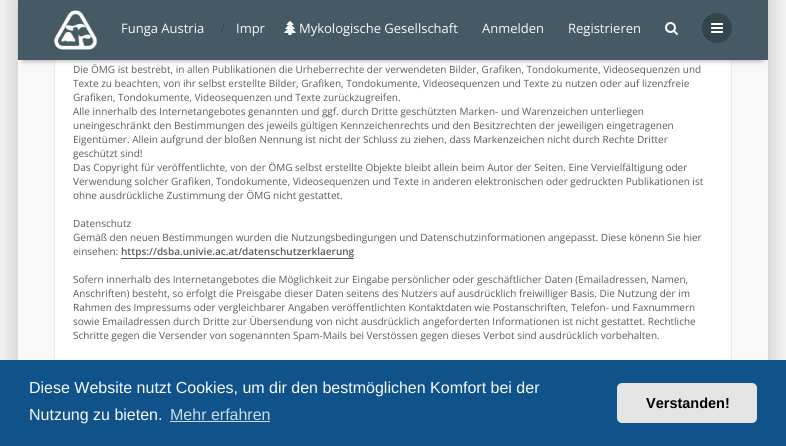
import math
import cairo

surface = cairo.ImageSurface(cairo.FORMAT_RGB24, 786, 446)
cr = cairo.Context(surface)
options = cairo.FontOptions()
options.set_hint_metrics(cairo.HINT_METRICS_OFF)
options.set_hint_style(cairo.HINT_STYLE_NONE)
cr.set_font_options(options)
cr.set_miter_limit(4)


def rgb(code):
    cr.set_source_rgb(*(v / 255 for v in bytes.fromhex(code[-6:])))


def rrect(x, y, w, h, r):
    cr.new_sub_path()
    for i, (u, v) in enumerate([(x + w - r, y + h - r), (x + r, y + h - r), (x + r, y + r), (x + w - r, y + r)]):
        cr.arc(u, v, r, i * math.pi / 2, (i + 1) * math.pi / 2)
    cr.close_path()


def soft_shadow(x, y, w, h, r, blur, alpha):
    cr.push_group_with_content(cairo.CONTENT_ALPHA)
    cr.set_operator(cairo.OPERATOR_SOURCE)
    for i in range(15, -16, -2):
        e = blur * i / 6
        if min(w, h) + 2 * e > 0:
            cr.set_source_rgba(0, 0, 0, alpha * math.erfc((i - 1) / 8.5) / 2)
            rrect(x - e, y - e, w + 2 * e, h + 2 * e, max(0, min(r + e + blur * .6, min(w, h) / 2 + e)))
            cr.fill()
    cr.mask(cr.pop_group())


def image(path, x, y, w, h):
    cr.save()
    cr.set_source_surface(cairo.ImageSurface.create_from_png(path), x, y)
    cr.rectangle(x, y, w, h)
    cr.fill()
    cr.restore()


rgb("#f8f8f8")
cr.paint()
rgb("#000000")
soft_shadow(18, -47, 750, 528, 2, 15, 0.24)
rgb("#f8f8f8")
cr.rectangle(18, 60, 750, 300)
cr.fill()
rgb("#ffffff")
cr.rectangle(55, 60, 676, 300)
cr.fill()
cr.rectangle(54.5, -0.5, 677, 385)
rgb("#eaeaea")
cr.set_line_width(1)
cr.stroke()
rgb("#000000")
soft_shadow(24, 12, 738, 48, 0, 3, 0.42)
rgb("#455a64")
cr.rectangle(18, 0, 750, 60)
cr.fill()
image("img/1.png", 54, 10, 43, 40)
image("img/2.png", 284, 21, 12, 14)
image("img/3.png", 665, 22, 13, 13)
rgb("#34444c")
cr.arc(717, 28, 15, 0, 2 * math.pi)
cr.fill()
image("img/4.png", 711, 23, 12, 10)
for x, y, w, h, color in [
    (121, 258, 233, 1, "#5a5a5a"),
    (0, 360, 786, 86, "#0f538a"),
    (170, 421, 100, 1, "#cfdde8"),
]:
    rgb(color)
    cr.rectangle(x, y, w, h)
    cr.fill()
rgb("#e5e5e5")
rrect(617, 383, 140, 40, 5)
cr.fill()
cr.select_font_face("Open Sans")
cr.set_font_size(13)
rgb("#fafafa")
cr.move_to(121, 33)
cr.show_text("Funga Austria")
rgb("#34444c")
cr.move_to(220, 33)
cr.show_text("/")
rgb("#fafafa")
for x, y, s in [
    (236, 33, "Impr"),
    (299, 33, "Mykologische Gesellschaft"),
    (482, 33, "Anmelden"),
    (568, 33, "Registrieren"),
]:
    cr.move_to(x, y)
    cr.show_text(s)
cr.set_font_size(10)
rgb("#5a5a5a")
for x, y, s in [
    (73, 73, "Die ÖMG ist bestrebt, in allen Publikationen die Urheberrechte der verwendeten Bilder, Grafiken, Tondokumente, Videosequenzen und"),
    (73, 87, "Texte zu beachten, von ihr selbst erstellte Bilder, Grafiken, Tondokumente, Videosequenzen und Texte zu nutzen oder auf lizenzfreie"),
    (73, 101, "Grafiken, Tondokumente, Videosequenzen und Texte zurückzugreifen."),
    (73, 115, "Alle innerhalb des Internetangebotes genannten und ggf. durch Dritte geschützten Marken- und Warenzeichen unterliegen"),
    (73, 129, "uneingeschränkt den Bestimmungen des jeweils gültigen Kennzeichenrechts und den Besitzrechten der jeweiligen eingetragenen"),
    (73, 143, "Eigentümer. Allein aufgrund der bloßen Nennung ist nicht der Schluss zu ziehen, dass Markenzeichen nicht durch Rechte Dritter"),
    (73, 157, "geschützt sind!"),
    (73, 171, "Das Copyright für veröffentlichte, von der ÖMG selbst erstellte Objekte bleibt allein beim Autor der Seiten. Eine Vervielfältigung oder"),
    (73, 185, "Verwendung solcher Grafiken, Tondokumente, Videosequenzen und Texte in anderen elektronischen oder gedruckten Publikationen ist"),
    (73, 199, "ohne ausdrückliche Zustimmung der ÖMG nicht gestattet."),
    (73, 227, "Datenschutz"),
    (73, 241, "Gemäß den neuen Bestimmungen wurden die Nutzungsbedingungen und Datenschutzinformationen angepasst. Diese könenn Sie hier"),
    (73, 255, "einsehen:"),
]:
    cr.move_to(x, y)
    cr.show_text(s)
cr.select_font_face("Open Sans SemiBold")
cr.move_to(121, 255)
cr.show_text("https://dsba.univie.ac.at/datenschutzerklaerung")
cr.select_font_face("Open Sans")
for x, y, s in [
    (73, 283, "Sofern innerhalb des Internetangebotes die Möglichkeit zur Eingabe persönlicher oder geschäftlicher Daten (Emailadressen, Namen,"),
    (73, 297, "Anschriften) besteht, so erfolgt die Preisgabe dieser Daten seitens des Nutzers auf ausdrücklich freiwilliger Basis. Die Nutzung der im"),
    (73, 311, "Rahmen des Impressums oder vergleichbarer Angaben veröffentlichten Kontaktdaten wie Postanschriften, Telefon- und Faxnummern"),
    (73, 325, "sowie Emailadressen durch Dritte zur Übersendung von nicht ausdrücklich angeforderten Informationen ist nicht gestattet. Rechtliche"),
    (73, 339, "Schritte gegen die Versender von sogenannten Spam-Mails bei Verstössen gegen dieses Verbot sind ausdrücklich vorbehalten."),
]:
    cr.move_to(x, y)
    cr.show_text(s)
cr.select_font_face("Liberation Sans")
cr.set_font_size(16)
rgb("#fafafa")
cr.move_to(29, 393)
cr.show_text("Diese Website nutzt Cookies, um dir den bestmöglichen Komfort bei der")
cr.move_to(29, 420)
cr.show_text("Nutzung zu bieten.")
rgb("#cfdde8")
cr.move_to(170, 420)
cr.show_text("Mehr erfahren")
cr.select_font_face("Liberation Sans", cairo.FONT_SLANT_NORMAL, cairo.FONT_WEIGHT_BOLD)
cr.set_font_size(14.5)
rgb("#000000")
cr.move_to(646, 408)
cr.show_text("Verstanden!")
surface.write_to_png("page.png")
